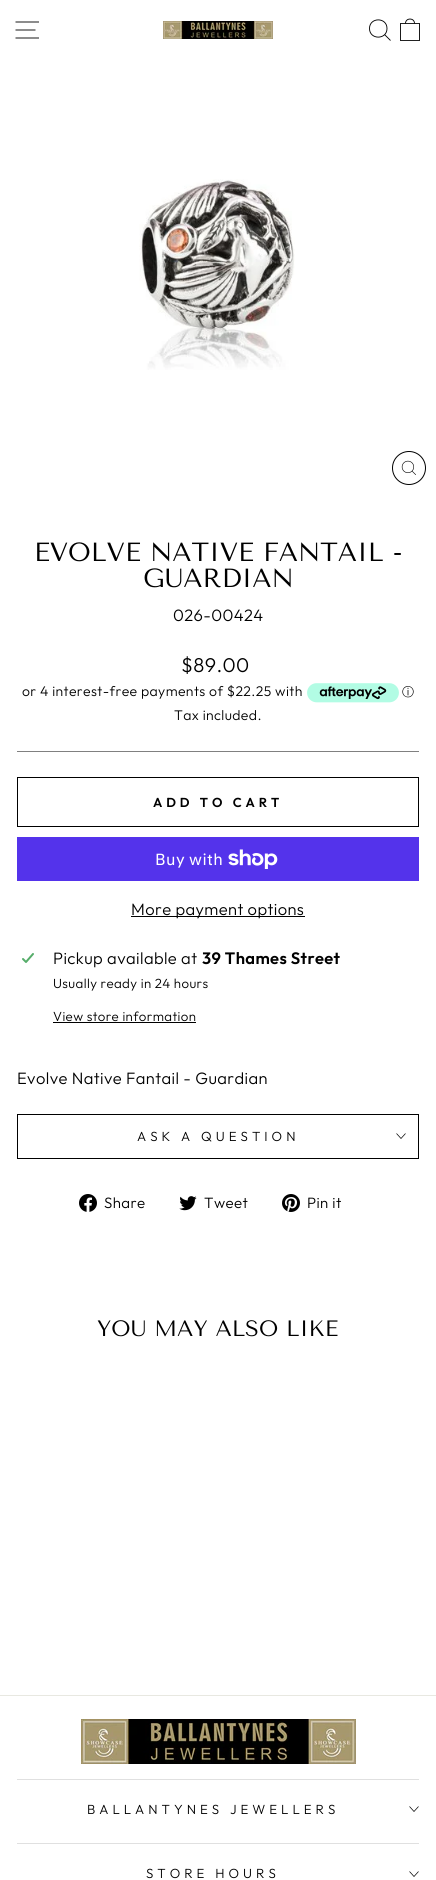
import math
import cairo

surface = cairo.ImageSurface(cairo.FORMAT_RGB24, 436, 1880)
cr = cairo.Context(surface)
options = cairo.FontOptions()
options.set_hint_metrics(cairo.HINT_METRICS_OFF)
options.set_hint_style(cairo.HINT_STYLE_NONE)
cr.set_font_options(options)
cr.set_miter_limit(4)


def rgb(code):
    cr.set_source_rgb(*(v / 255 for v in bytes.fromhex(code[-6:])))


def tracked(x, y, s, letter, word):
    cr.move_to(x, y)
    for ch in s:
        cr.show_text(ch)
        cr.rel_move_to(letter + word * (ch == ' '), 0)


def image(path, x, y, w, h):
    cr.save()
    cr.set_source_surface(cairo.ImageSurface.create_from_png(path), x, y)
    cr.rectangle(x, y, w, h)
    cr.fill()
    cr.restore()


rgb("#ffffff")
cr.paint()
cr.new_path()
cr.move_to(15.5, 22)
cr.line_to(39, 22)
cr.move_to(15.5, 30)
cr.line_to(35.5, 30)
cr.move_to(15.5, 38)
cr.line_to(39, 38)
rgb("#000000")
cr.set_line_width(0.9)
cr.stroke()
image("img/1.png", 163, 21, 110, 18)
cr.new_path()
cr.move_to(387, 28.5)
cr.curve_to(387, 40, 369.5, 40, 369.5, 28.5)
cr.curve_to(369.5, 17, 387, 17, 387, 28.5)
cr.close_path()
cr.move_to(390.5, 40.5)
cr.line_to(384.5, 34.5)
cr.move_to(400.5, 23.5)
cr.line_to(419.5, 23.5)
cr.line_to(419.5, 40.5)
cr.line_to(400.5, 40.5)
cr.close_path()
cr.move_to(405.5, 23.5)
cr.curve_to(405.5, 17.5, 414.5, 17.5, 414.5, 23.5)
cr.stroke()
image("img/2.png", 139, 179, 156, 191)
cr.arc(409, 468, 16.5, 0, 2 * math.pi)
cr.set_line_width(1)
cr.stroke()
image("img/3.png", 401, 460, 15, 15)
image("img/4.png", 307, 683, 92, 20)
rgb("#808080")
cr.rectangle(17, 751, 402, 1)
cr.fill()
cr.rectangle(17.5, 777.5, 401, 49)
rgb("#000000")
cr.stroke()
rgb("#5433eb")
cr.rectangle(17, 837, 402, 44)
cr.fill()
image("img/5.png", 228, 849, 50, 20)
rgb("#000000")
cr.rectangle(131, 916, 174, 1)
cr.fill()
image("img/6.png", 22, 953, 12, 10)
for x, y, w, h, color in [
    (53, 1022, 143, 1, "#000000"),
    (17, 1158, 402, 1, "#000000"),
    (17, 1114, 402, 1, "#000000"),
    (418, 1114, 1, 44, "#000000"),
    (17, 1114, 1, 44, "#000000"),
]:
    rgb(color)
    cr.rectangle(x, y, w, h)
    cr.fill()
cr.new_path()
cr.move_to(396.5, 1133.5)
cr.line_to(401, 1138.5)
cr.line_to(405.5, 1133.5)
cr.set_line_width(0.7)
cr.stroke()
image("img/7.png", 79, 1194, 18, 18)
image("img/8.png", 179, 1196, 18, 15)
image("img/9.png", 282, 1194, 18, 18)
rgb("#e8e8e1")
cr.rectangle(0, 1695, 436, 1)
cr.fill()
image("img/10.png", 81, 1719, 275, 45)
rgb("#e0e0e0")
cr.rectangle(17, 1779, 402, 1)
cr.fill()
cr.new_path()
cr.move_to(409.5, 1806.5)
cr.line_to(414, 1811.5)
cr.line_to(418.5, 1806.5)
rgb("#000000")
cr.stroke()
rgb("#e0e0e0")
cr.rectangle(17, 1843, 402, 1)
cr.fill()
cr.new_path()
cr.move_to(409.5, 1871.5)
cr.line_to(414, 1876.5)
cr.line_to(418.5, 1871.5)
rgb("#000000")
cr.stroke()
cr.select_font_face("Tenor Sans")
cr.set_font_size(26.25)
cr.move_to(34, 561)
cr.show_text("EVOLVE NATIVE FANTAIL -")
cr.move_to(143, 587)
cr.show_text("GUARDIAN")
cr.select_font_face("Outfit Light")
cr.set_font_size(16.5)
tracked(173, 621, "026-00424", 0.4, 0)
cr.set_font_size(20)
tracked(181, 672, "$89.00", 0.4, 0)
cr.set_font_size(14)
tracked(22, 696, "or 4 interest-free payments of $22.25 with", 0.4, 0)
cr.select_font_face("WenQuanYi Zen Hei Medium")
cr.set_font_size(12)
cr.move_to(402, 696)
cr.show_text("ⓘ")
cr.select_font_face("Outfit Light")
cr.set_font_size(14)
tracked(174, 720, "Tax included.", 0.4, 0)
cr.select_font_face("Outfit SemiBold")
cr.set_font_size(13)
tracked(153, 807, "ADD TO CART", 3.9, 0)
cr.select_font_face("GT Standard")
cr.set_font_size(16)
rgb("#ffffff")
tracked(155, 865, "Buy with", 0.4, 0)
cr.select_font_face("Outfit Light")
cr.set_font_size(16.5)
rgb("#000000")
tracked(131, 915, "More payment options", 0.4, 0)
tracked(53, 964, "Pickup available at", 0.4, 0)
cr.select_font_face("Outfit SemiBold")
tracked(202, 964, "39 Thames Street", 0.4, 0)
cr.select_font_face("Outfit Light")
cr.set_font_size(13.25)
tracked(53, 988, "Usually ready in 24 hours", 0.4, 0)
tracked(53, 1021, "View store information", 0.4, 0)
cr.set_font_size(16.5)
tracked(17, 1084, "Evolve Native Fantail - Guardian", 0.4, 0)
cr.set_font_size(13.25)
tracked(137, 1141, "ASK A QUESTION", 4, 0)
cr.set_font_size(15)
for x, y, s in [
    (104, 1208, "Share"),
    (204, 1208, "Tweet"),
    (307, 1208, "Pin it"),
]:
    tracked(x, y, s, 0.4, 0)
cr.select_font_face("Tenor Sans")
cr.set_font_size(22.25)
cr.move_to(97, 1336)
cr.show_text("YOU MAY ALSO LIKE")
cr.select_font_face("Outfit Light")
cr.set_font_size(13.25)
tracked(87, 1814, "BALLANTYNES JEWELLERS", 4, 0)
tracked(146, 1878, "STORE HOURS", 4, 0)
surface.write_to_png("page.png")
